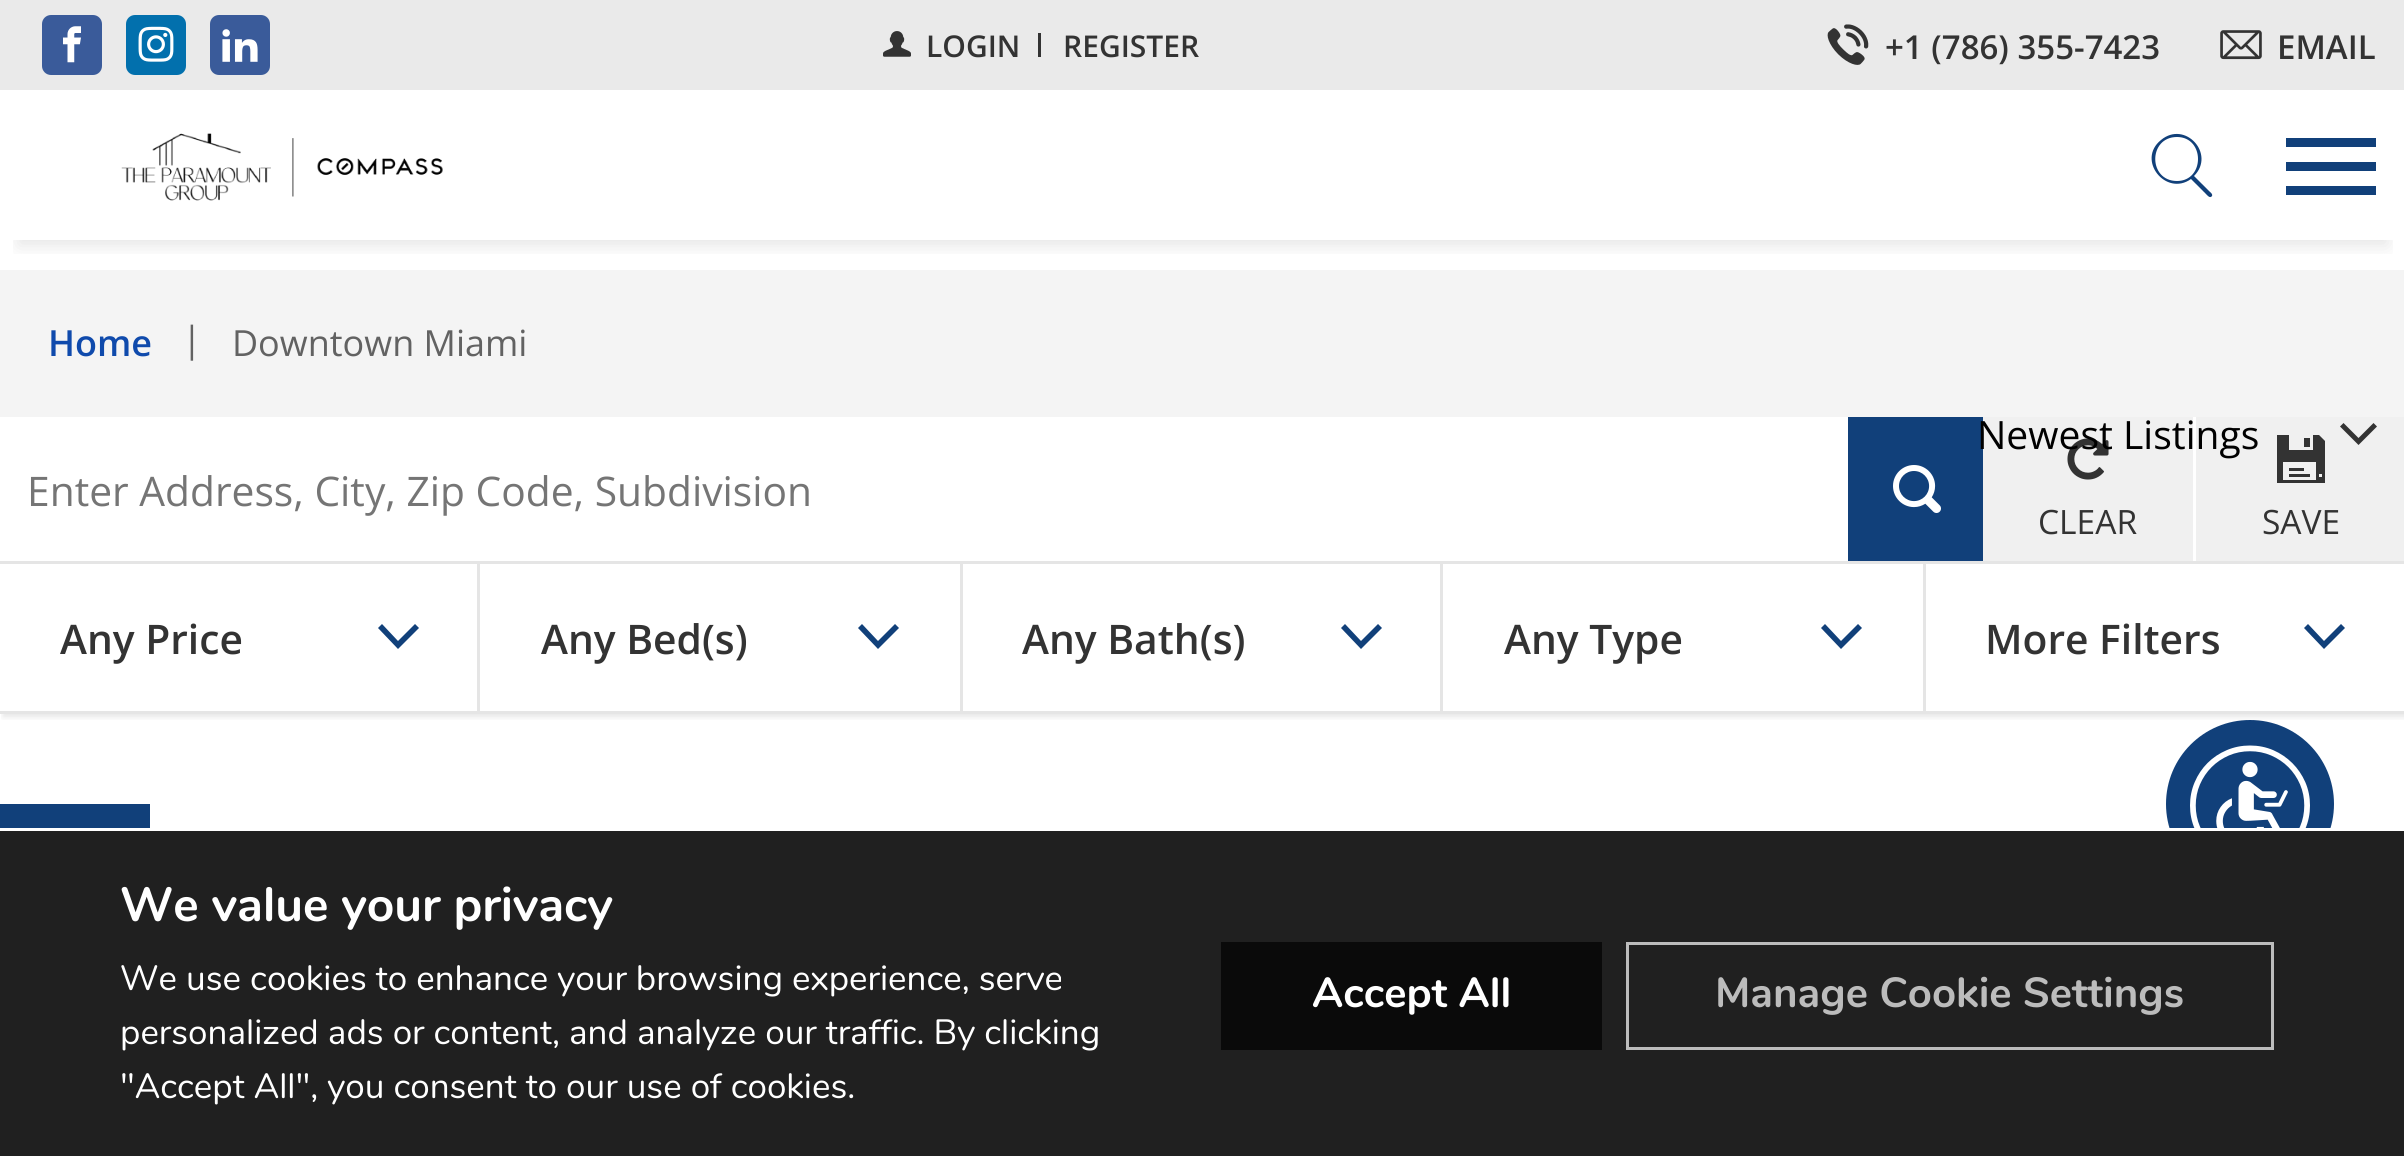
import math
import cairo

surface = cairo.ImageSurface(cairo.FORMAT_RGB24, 2404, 1156)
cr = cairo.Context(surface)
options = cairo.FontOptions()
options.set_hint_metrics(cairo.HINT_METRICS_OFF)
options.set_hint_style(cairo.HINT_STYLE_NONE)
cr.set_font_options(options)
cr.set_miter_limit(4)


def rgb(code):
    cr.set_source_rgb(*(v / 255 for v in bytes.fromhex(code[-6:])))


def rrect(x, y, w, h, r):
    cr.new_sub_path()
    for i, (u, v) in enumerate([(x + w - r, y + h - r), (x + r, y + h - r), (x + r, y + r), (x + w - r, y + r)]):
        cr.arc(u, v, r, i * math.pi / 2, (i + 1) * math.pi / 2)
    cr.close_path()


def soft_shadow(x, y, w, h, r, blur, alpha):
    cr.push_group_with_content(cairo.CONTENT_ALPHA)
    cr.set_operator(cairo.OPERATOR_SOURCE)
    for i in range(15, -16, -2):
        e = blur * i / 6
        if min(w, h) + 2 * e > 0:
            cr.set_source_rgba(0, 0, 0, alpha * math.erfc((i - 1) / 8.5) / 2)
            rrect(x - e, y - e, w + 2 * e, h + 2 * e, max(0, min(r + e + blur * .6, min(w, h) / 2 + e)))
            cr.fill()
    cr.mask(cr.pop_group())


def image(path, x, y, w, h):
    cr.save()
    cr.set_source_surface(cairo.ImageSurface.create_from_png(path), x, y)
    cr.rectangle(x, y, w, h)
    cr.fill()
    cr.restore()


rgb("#ffffff")
cr.paint()
cr.save()
cr.rectangle(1, 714, 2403, 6)
cr.clip()
rgb("#000000")
soft_shadow(3, 417, 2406, 300, 0, 3, 0.1)
cr.restore()
rgb("#f4f4f4")
cr.rectangle(0, 270, 2404, 147)
cr.fill()
cr.save()
cr.rectangle(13, 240, 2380, 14)
cr.clip()
rgb("#000000")
soft_shadow(18, 42, 2370, 204, 0, 9, 0.1)
cr.restore()
rgb("#eaeaea")
cr.rectangle(0, 0, 2404, 90)
cr.fill()
rgb("#3a5b9a")
rrect(42, 15, 60, 60, 9)
cr.fill()
image("img/1.png", 63, 26, 18, 37)
rgb("#0270ad")
rrect(126, 15, 60, 60, 9)
cr.fill()
image("img/2.png", 138, 26, 36, 36)
rgb("#3a5b9a")
rrect(210, 15, 60, 60, 9)
cr.fill()
image("img/3.png", 222, 29, 36, 33)
image("img/4.png", 883, 31, 28, 26)
rgb("#333333")
cr.rectangle(1038, 33, 3, 24)
cr.fill()
image("img/5.png", 1827, 24, 42, 41)
image("img/6.png", 2220, 30, 42, 30)
image("img/7.png", 121, 133, 322, 68)
rgb("#11407a")
cr.new_path()
cr.move_to(2191, 179)
cr.curve_to(2166, 197, 2136, 160, 2161, 140)
cr.curve_to(2185, 120, 2216, 154, 2194, 176)
cr.line_to(2209, 191)
cr.curve_to(2210, 192, 2213, 194, 2212, 196)
cr.curve_to(2210, 199, 2207, 195, 2206, 194)
cr.close_path()
cr.move_to(2177, 181)
cr.curve_to(2205, 181, 2205, 137, 2177, 137)
cr.curve_to(2148, 137, 2148, 181, 2177, 181)
cr.close_path()
cr.fill()
for x, y, w, h, color in [
    (2286, 138, 90, 9, "#11407a"),
    (2286, 162, 90, 9, "#11407a"),
    (2286, 186, 90, 9, "#11407a"),
    (1983, 417, 421, 144, "#f0f0f0"),
]:
    rgb(color)
    cr.rectangle(x, y, w, h)
    cr.fill()
rgb("#333333")
cr.new_path()
cr.move_to(2377, 426.5)
cr.line_to(2358.5, 445)
cr.line_to(2340, 426.5)
cr.line_to(2343.5, 423)
cr.line_to(2358.5, 438)
cr.line_to(2373.5, 423)
cr.close_path()
cr.fill()
rgb("#e5e5e5")
cr.rectangle(0, 561, 2404, 3)
cr.fill()
rgb("#11407a")
cr.rectangle(1848, 417, 135, 144)
cr.fill()
image("img/8.png", 1893, 465, 48, 48)
image("img/9.png", 2067, 438, 42, 42)
rgb("#ffffff")
cr.rectangle(2193, 417, 3, 144)
cr.fill()
image("img/10.png", 2277, 435, 48, 48)
rgb("#e5e5e5")
cr.rectangle(0, 711, 2404, 3)
cr.fill()
cr.rectangle(477, 564, 3, 147)
cr.fill()
rgb("#11407a")
cr.new_path()
cr.move_to(419, 628)
cr.line_to(398, 649)
cr.line_to(378, 628)
cr.line_to(382, 624)
cr.line_to(398, 641)
cr.line_to(415, 624)
cr.close_path()
cr.fill()
rgb("#e5e5e5")
cr.rectangle(960, 564, 3, 147)
cr.fill()
rgb("#11407a")
cr.new_path()
cr.move_to(899, 628)
cr.line_to(878, 649)
cr.line_to(858, 628)
cr.line_to(862, 624)
cr.line_to(878, 641)
cr.line_to(895, 624)
cr.close_path()
cr.fill()
rgb("#e5e5e5")
cr.rectangle(1440, 564, 3, 147)
cr.fill()
rgb("#11407a")
cr.new_path()
cr.move_to(1382, 628)
cr.line_to(1361, 649)
cr.line_to(1341, 628)
cr.line_to(1345, 624)
cr.line_to(1361, 641)
cr.line_to(1378, 624)
cr.close_path()
cr.fill()
rgb("#e5e5e5")
cr.rectangle(1923, 564, 3, 147)
cr.fill()
rgb("#11407a")
cr.new_path()
cr.move_to(1862, 628)
cr.line_to(1841, 649)
cr.line_to(1821, 628)
cr.line_to(1825, 624)
cr.line_to(1841, 641)
cr.line_to(1858, 624)
cr.close_path()
cr.fill()
cr.new_path()
cr.move_to(2345, 628)
cr.line_to(2324, 649)
cr.line_to(2304, 628)
cr.line_to(2308, 624)
cr.line_to(2324, 641)
cr.line_to(2341, 624)
cr.close_path()
cr.fill()
cr.rectangle(0, 804, 150, 24)
cr.fill()
cr.arc(2250, 804, 84, 0, 2 * math.pi)
cr.fill()
image("img/11.png", 2190, 745, 120, 83)
for x, y, w, h, color in [
    (0, 831, 2404, 325, "#202020"),
    (2169, 828, 162, 3, "#ffffff"),
    (1221, 942, 381, 108, "#0a0a0a"),
]:
    rgb(color)
    cr.rectangle(x, y, w, h)
    cr.fill()
cr.rectangle(1627.5, 943.5, 645, 105)
rgb("#bcbcbc")
cr.set_line_width(3)
cr.stroke()
cr.select_font_face("Open Sans SemiBold")
cr.set_font_size(30)
rgb("#333333")
cr.move_to(926, 57)
cr.show_text("LOGIN")
cr.move_to(1063, 57)
cr.show_text("REGISTER")
cr.set_font_size(33)
cr.move_to(1885, 59)
cr.show_text("+1 (786) 355-7423")
cr.move_to(2277, 59)
cr.show_text("EMAIL")
cr.set_font_size(36)
rgb("#0f4aac")
cr.move_to(48, 356)
cr.show_text("Home")
cr.select_font_face("Open Sans")
rgb("#626262")
cr.move_to(182, 352)
cr.show_text("|")
cr.move_to(232, 356)
cr.show_text("Downtown Miami")
cr.set_font_size(39)
rgb("#000000")
cr.move_to(1977, 449)
cr.show_text("Newest Listings")
cr.set_font_size(40.75)
rgb("#757575")
cr.move_to(27, 506)
cr.show_text("Enter Address, City, Zip Code, Subdivision")
cr.set_font_size(33.5)
rgb("#333333")
cr.move_to(2038, 534)
cr.show_text("CLEAR")
cr.move_to(2262, 534)
cr.show_text("SAVE")
cr.select_font_face("Open Sans SemiBold")
cr.set_font_size(40.75)
for x, y, s in [
    (60, 654, "Any Price"),
    (541, 654, "Any Bed(s)"),
    (1022, 654, "Any Bath(s)"),
    (1504, 654, "Any Type"),
    (1985, 654, "More Filters"),
]:
    cr.move_to(x, y)
    cr.show_text(s)
cr.select_font_face("Nunito", cairo.FONT_SLANT_NORMAL, cairo.FONT_WEIGHT_BOLD)
cr.set_font_size(48)
rgb("#ffffff")
cr.move_to(120, 921)
cr.show_text("We value your privacy")
cr.select_font_face("Nunito")
cr.set_font_size(35.05)
for x, y, s in [
    (120, 990, "We use cookies to enhance your browsing experience, serve"),
    (120, 1044, "personalized ads or content, and analyze our traffic. By clicking"),
    (120, 1098, "\"Accept All\", you consent to our use of cookies."),
]:
    cr.move_to(x, y)
    cr.show_text(s)
cr.select_font_face("Nunito", cairo.FONT_SLANT_NORMAL, cairo.FONT_WEIGHT_BOLD)
cr.set_font_size(42)
cr.move_to(1312, 1007)
cr.show_text("Accept All")
rgb("#bcbcbc")
cr.move_to(1715, 1007)
cr.show_text("Manage Cookie Settings")
surface.write_to_png("page.png")
